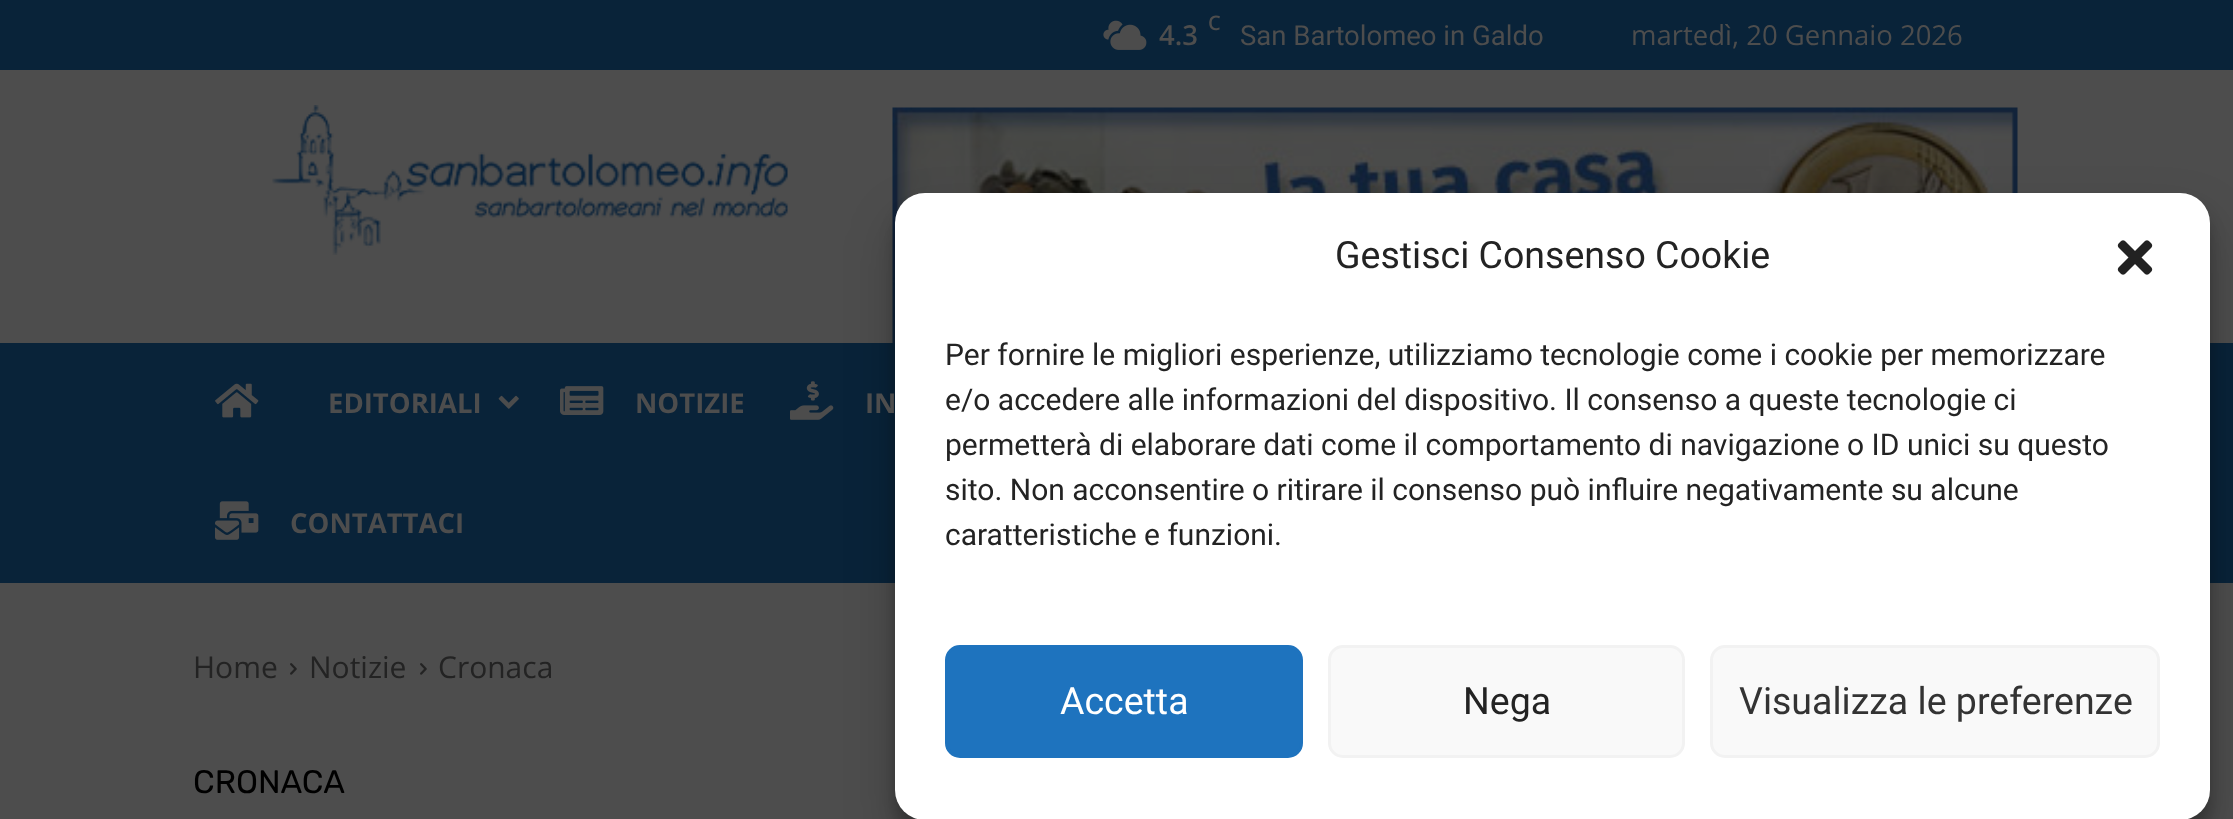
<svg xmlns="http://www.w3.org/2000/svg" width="2233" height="819">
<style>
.a{font:600 20px Open Sans;fill:#4d4d4d}
.b{font:600 27.5px Open Sans;fill:#4d4d4d}
.c{font:27.5px Roboto;fill:#4d4d4d}
.d{font:27.5px Open Sans;fill:#4d4d4d}
.e{font:bold 27.5px Open Sans;fill:#4d4d4d}
.f{font:30px Open Sans;fill:#232323}
.g{font:32.5px Rubik;fill:#000}
.h{font:37.5px Roboto;fill:#232323}
.i{font:30px Roboto;fill:#232323}
.j{font:37.5px Roboto;fill:#fff}
.k{font:37.5px Roboto;fill:#333}
</style>
<rect width="100%" height="100%" fill="#4d4d4d"/>
<path fill="#092339" d="M0 0h2233v70H0z"/>
<image href="1.png" x="1103" y="20" width="44" height="30"/>
<image href="2.png" x="272" y="105" width="516" height="150"/>
<image href="3.png" x="892" y="107" width="1126" height="236"/>
<path fill="#092339" d="M0 343h2233v240H0z"/>
<image href="4.png" x="215" y="383" width="44" height="35"/>
<image href="5.png" x="498" y="395" width="21" height="14"/>
<image href="6.png" x="560" y="386" width="44" height="29"/>
<image href="7.png" x="790" y="381" width="44" height="39"/>
<image href="8.png" x="215" y="501" width="44" height="39"/>
<image href="9.png" x="290" y="663" width="7" height="12"/>
<image href="9.png" x="420" y="663" width="7" height="12"/>
<rect fill="#0000003b" filter="blur(7.5px)" x="895" y="208" width="1315" height="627" rx="30"/>
<rect fill="#00000030" filter="blur(25px)" x="895" y="218" width="1315" height="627" rx="30"/>
<rect fill="#fff" x="895" y="193" width="1315" height="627" rx="30"/>
<image href="10.png" x="2117" y="240" width="36" height="35"/>
<rect fill="#1e73be" stroke="#1e73be" stroke-width="3" x="946.5" y="646.5" width="355" height="110" rx="13.5"/>
<rect fill="#f9f9f9" stroke="#f2f2f2" stroke-width="3" x="1329.5" y="646.5" width="354" height="110" rx="13.5"/>
<rect fill="#f9f9f9" stroke="#f2f2f2" stroke-width="3" x="1711.5" y="646.5" width="447" height="110" rx="13.5"/>
<text class="a" x="1208" y="30">C</text>
<text class="b" x="1159" y="45">4.3</text>
<text class="c" x="1240" y="45">San Bartolomeo in Galdo</text>
<text class="d" x="1631" y="45">martedì, 20 Gennaio 2026</text>
<text class="e" x="328" y="413">EDITORIALI</text>
<text class="e" x="635" y="413">NOTIZIE</text>
<text class="e" x="865" y="413">IN</text>
<text class="e" x="290" y="533">CONTATTACI</text>
<text class="f" x="193" y="678">Home</text>
<text class="f" x="309" y="678">Notizie</text>
<text class="f" x="438" y="678">Cronaca</text>
<text class="g" x="193" y="793">CRONACA</text>
<text class="h" x="1335" y="268">Gestisci Consenso Cookie</text>
<text class="i" x="945" y="365">Per fornire le migliori esperienze, utilizziamo tecnologie come i cookie per memorizzare</text>
<text class="i" x="945" y="410">e/o accedere alle informazioni del dispositivo. Il consenso a queste tecnologie ci</text>
<text class="i" x="945" y="455">permetterà di elaborare dati come il comportamento di navigazione o ID unici su questo</text>
<text class="i" x="945" y="500">sito. Non acconsentire o ritirare il consenso può influire negativamente su alcune</text>
<text class="i" x="945" y="545">caratteristiche e funzioni.</text>
<text class="j" x="1060" y="714">Accetta</text>
<text class="h" x="1463" y="714">Nega</text>
<text class="k" x="1739" y="714">Visualizza le preferenze</text>
</svg>
